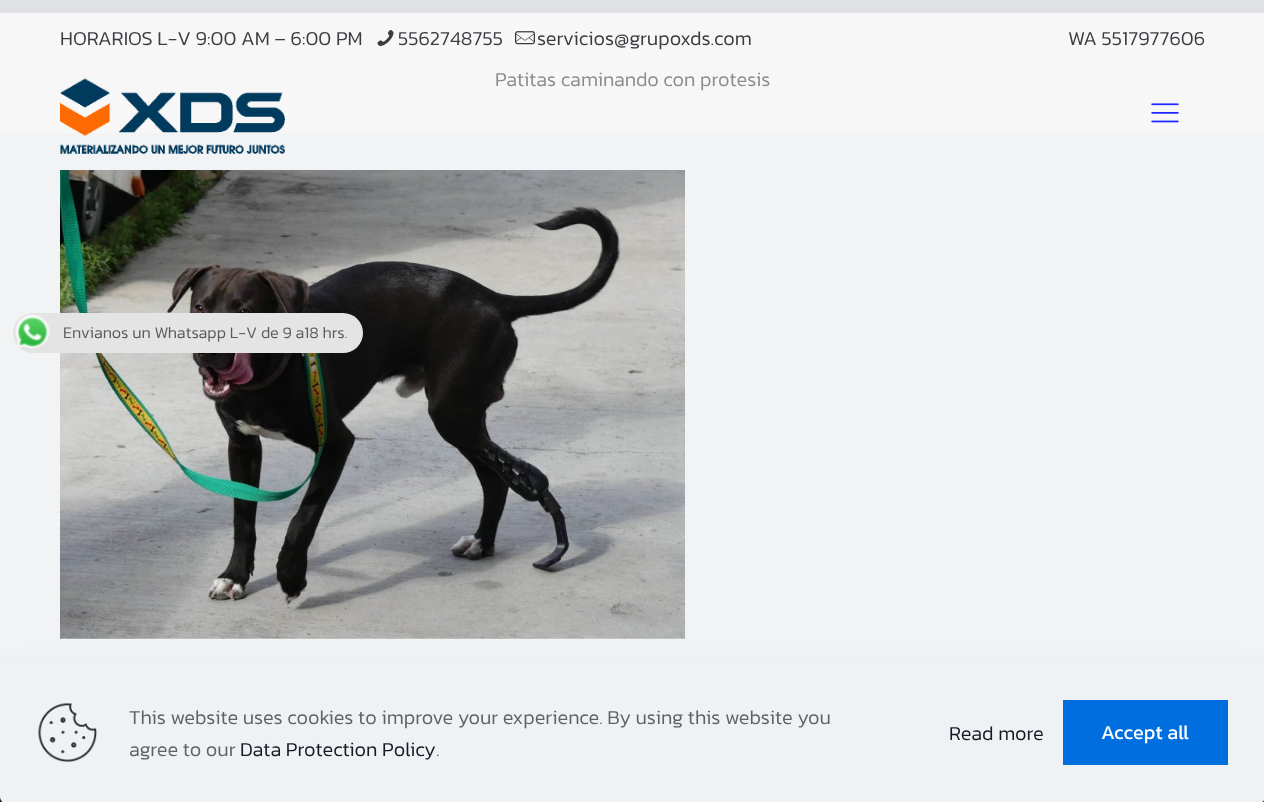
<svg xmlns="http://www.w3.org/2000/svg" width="1264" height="802">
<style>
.a{font:300 20px Kanit;fill:#3a3c41}
.b{font:300 20px Kanit;fill:#8c8c8c}
.c{font:300 16.25px Kanit;fill:#5b5b5b}
.d{font:300 20px Kanit;fill:#626262}
.e{font:300 20px Kanit;fill:#161922}
.f{font:20px Kanit;fill:#fff}
</style>
<rect width="100%" height="100%" fill="#f2f3f4"/>
<path fill="#e0e1e5" d="M0 0h1264v13H0z"/>
<path fill="#f7f7f7" d="M0 13h1264v120H0z"/>
<image href="1.png" x="377" y="30" width="17" height="16"/>
<image href="2.png" x="515" y="31" width="20" height="14"/>
<image href="3.png" x="60" y="78" width="225" height="76"/>
<image href="4.png" x="1151" y="103" width="28" height="20"/>
<image href="5.png" x="60" y="170" width="625" height="469"/>
<path fill="#24262b" d="M0 797h1264v5H0z"/>
<rect fill="#e4e4e4" x="13" y="313" width="350" height="40" rx="20"/>
<image href="6.png" x="15" y="314" width="35" height="36"/>
<rect fill="#01072721" filter="blur(19px)" y="681" width="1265" height="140" rx="6"/>
<rect fill="#eef2f5" y="663" width="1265" height="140" rx="6"/>
<image href="7.png" x="38" y="703" width="59" height="59"/>
<path fill="#006edf" d="M1063 700h165v65H1063z"/>
<text class="a" x="60" y="45">HORARIOS L-V 9:00 AM – 6:00 PM</text>
<text class="a" x="398" y="45">5562748755</text>
<text class="a" x="537" y="45">servicios@grupoxds.com</text>
<text class="a" x="1068" y="45">WA 5517977606</text>
<text class="b" x="495" y="86">Patitas caminando con protesis</text>
<text class="c" x="63" y="338">Envianos un Whatsapp L-V de 9 a18 hrs.</text>
<text class="d" x="129" y="724">This website uses cookies to improve your experience. By using this website you</text>
<text class="d" x="129" y="756">agree to our</text>
<text class="e" x="240" y="756">Data Protection Policy</text>
<text class="d" x="436" y="756">.</text>
<text class="e" x="949" y="740">Read more</text>
<text class="f" x="1101" y="739">Accept all</text>
</svg>
